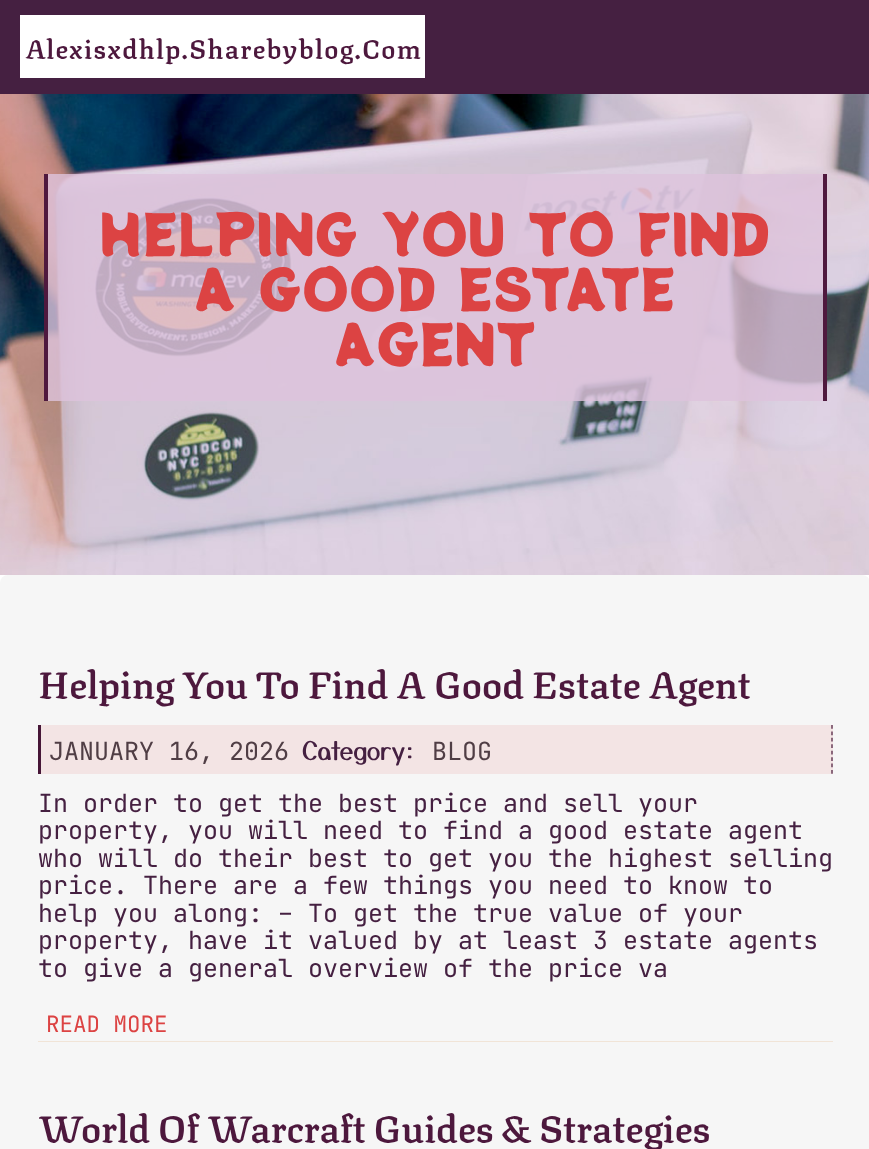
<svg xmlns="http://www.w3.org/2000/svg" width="869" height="1149">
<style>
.a{font:600 26.25px Texturina;letter-spacing:1.25px;fill:#4d183d}
.b{font:55px Potta One;fill:#dc4343}
.c{font:600 37.5px Texturina;fill:#4d183d}
.d{font:25px JetBrains Mono;fill:#503e45}
.e{font:25px Yusei Magic;fill:#452041}
.f{font:25px JetBrains Mono;fill:#452041}
.g{font:22.5px JetBrains Mono;fill:#dc4343}
</style>
<rect width="100%" height="100%" fill="#fff"/>
<path fill="#452041" d="M0 0h869v94H0z"/>
<path fill="#fff" d="M20 15h405v63H20z"/>
<image href="1.png" x="0" y="94" width="869" height="481"/>
<path fill="#ddc3dccc" d="M48 174h775v227H48z"/>
<path fill="#4f193e" d="M823 174h4v227H823z"/>
<path fill="#4f193e" d="M44 174h4v227H44z"/>
<rect fill="#f6f6f6" y="575" width="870" height="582" rx="8"/>
<path fill="#f1e4d7" d="M38 1041h795v1H38z"/>
<path fill="#f3e4e4" d="M41 725h792v49H41z"/>
<path fill="none" stroke="#461637" stroke-width="1.2" stroke-dasharray="3.75 2.68" d="M832 725v49"/>
<path fill="#461637" d="M38 725h3v49H38z"/>
<text class="a" x="25" y="59">Alexisxdhlp.Sharebyblog.Com</text>
<text class="b" x="100" y="256">HELPING YOU TO FIND</text>
<text class="b" x="194" y="311">A GOOD ESTATE</text>
<text class="b" x="334" y="366">AGENT</text>
<text class="c" x="38" y="699">Helping You To Find A Good Estate Agent</text>
<text class="d" x="49" y="760">JANUARY 16, 2026</text>
<text class="e" x="302" y="760">Category:</text>
<text class="d" x="432" y="760">BLOG</text>
<text class="f" x="38" y="812">In order to get the best price and sell your</text>
<text class="f" x="38" y="839">property, you will need to find a good estate agent</text>
<text class="f" x="38" y="867">who will do their best to get you the highest selling</text>
<text class="f" x="38" y="894">price. There are a few things you need to know to</text>
<text class="f" x="38" y="922">help you along: – To get the true value of your</text>
<text class="f" x="38" y="949">property, have it valued by at least 3 estate agents</text>
<text class="f" x="38" y="977">to give a general overview of the price va</text>
<text class="g" x="46" y="1032">READ MORE</text>
<text class="c" x="38" y="1143">World Of Warcraft Guides &amp; Strategies</text>
</svg>
